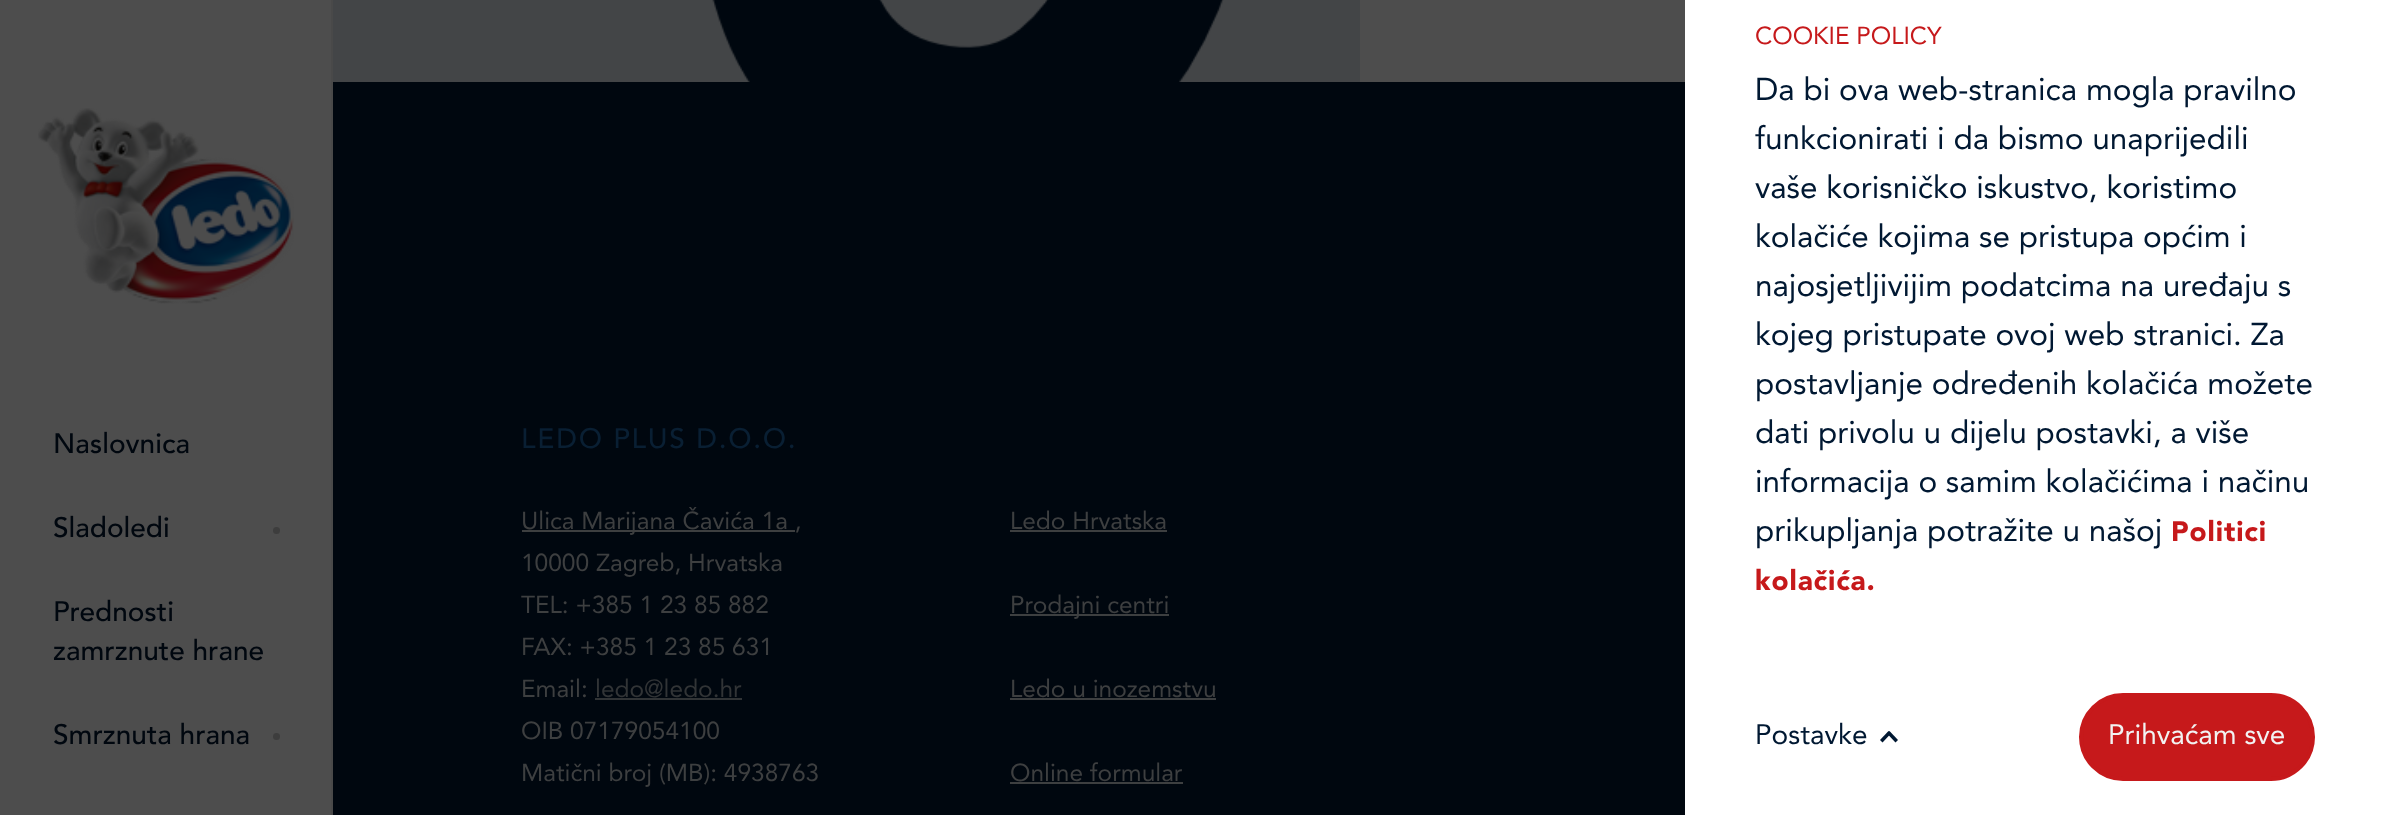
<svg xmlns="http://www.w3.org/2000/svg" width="2384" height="815">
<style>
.a{font:24.5px Avenir;fill:#c6191b}
.b{font:31.5px Avenir;fill:#001832}
.c{font:900 28px Avenir;letter-spacing:0.9px;fill:#c6191b}
.d{font:28px Avenir;fill:#001832}
.e{font:28px Avenir;fill:#f2f2f2}
.f{font:500 28px Avenir;fill:#00070f}
.g{font:500 28px Avenir;letter-spacing:1.75px;fill:#091f33}
.h{font:24.5px Avenir;fill:#3d3f40}
.i{font:24.5px Avenir;fill:#313436}
</style>
<rect width="100%" height="100%" fill="#4d4d4d"/>
<path fill="#434547" d="M333 0h1027v82H333z"/>
<image href="1.png" x="712" y="0" width="512" height="82"/>
<path fill="#fff" d="M1685 0h699v815H1685z"/>
<path fill="#001832" d="M1888.5 731l2.5 2.5l-8.5 9l-2.5-2.5z"/>
<path fill="#001832" d="M1887 733.5l2.5-2.5l8.5 9l-2.5 2.5z"/>
<rect fill="#c6191b" stroke="#c6191b" stroke-width="4" x="2081" y="695" width="232" height="84" rx="42"/>
<path fill="#494949" d="M331 0h2v815H331z"/>
<image href="2.png" x="38" y="108" width="256" height="196"/>
<circle fill="#3d3d3d" cx="276.5" cy="530.5" r="3.5"/>
<circle fill="#3d3d3d" cx="276.5" cy="736.5" r="3.5"/>
<path fill="#00070f" d="M333 82h1352v733H333z"/>
<path fill="#3d3f40" d="M522 530h273v2H522z"/>
<path fill="#313436" d="M595 698h147v2H595z"/>
<path fill="#3d3f40" d="M1010 530h157v2H1010z"/>
<path fill="#3d3f40" d="M1010 614h159v2H1010z"/>
<path fill="#3d3f40" d="M1010 698h206v2H1010z"/>
<path fill="#3d3f40" d="M1010 782h173v2H1010z"/>
<text class="a" x="1755" y="44">COOKIE POLICY</text>
<text class="b" x="1755" y="100">Da bi ova web-stranica mogla pravilno</text>
<text class="b" x="1755" y="149">funkcionirati i da bismo unaprijedili</text>
<text class="b" x="1755" y="198">vaše korisničko iskustvo, koristimo</text>
<text class="b" x="1755" y="247">kolačiće kojima se pristupa općim i</text>
<text class="b" x="1755" y="296">najosjetljivijim podatcima na uređaju s</text>
<text class="b" x="1755" y="345">kojeg pristupate ovoj web stranici. Za</text>
<text class="b" x="1755" y="394">postavljanje određenih kolačića možete</text>
<text class="b" x="1755" y="443">dati privolu u dijelu postavki, a više</text>
<text class="b" x="1755" y="492">informacija o samim kolačićima i načinu</text>
<text class="b" x="1755" y="541">prikupljanja potražite u našoj</text>
<text class="c" x="2171" y="541">Politici</text>
<text class="c" x="1755" y="590">kolačića.</text>
<text class="d" x="1755" y="744">Postavke</text>
<text class="e" x="2108" y="744">Prihvaćam sve</text>
<text class="f" x="53" y="453">Naslovnica</text>
<text class="f" x="53" y="537">Sladoledi</text>
<text class="f" x="53" y="621">Prednosti</text>
<text class="f" x="53" y="660">zamrznute hrane</text>
<text class="f" x="53" y="744">Smrznuta hrana</text>
<text class="g" x="521" y="448">LEDO PLUS D.O.O.</text>
<text class="h" x="521" y="529">Ulica Marijana Čavića 1a ,</text>
<text class="h" x="521" y="571">10000 Zagreb, Hrvatska</text>
<text class="h" x="521" y="613">TEL: +385 1 23 85 882</text>
<text class="h" x="521" y="655">FAX: +385 1 23 85 631</text>
<text class="h" x="521" y="697">Email:</text>
<text class="i" x="595" y="697">ledo@ledo.hr</text>
<text class="h" x="521" y="739">OIB 07179054100</text>
<text class="h" x="521" y="781">Matični broj (MB): 4938763</text>
<text class="h" x="1010" y="529">Ledo Hrvatska</text>
<text class="h" x="1010" y="613">Prodajni centri</text>
<text class="h" x="1010" y="697">Ledo u inozemstvu</text>
<text class="h" x="1010" y="781">Online formular</text>
</svg>
